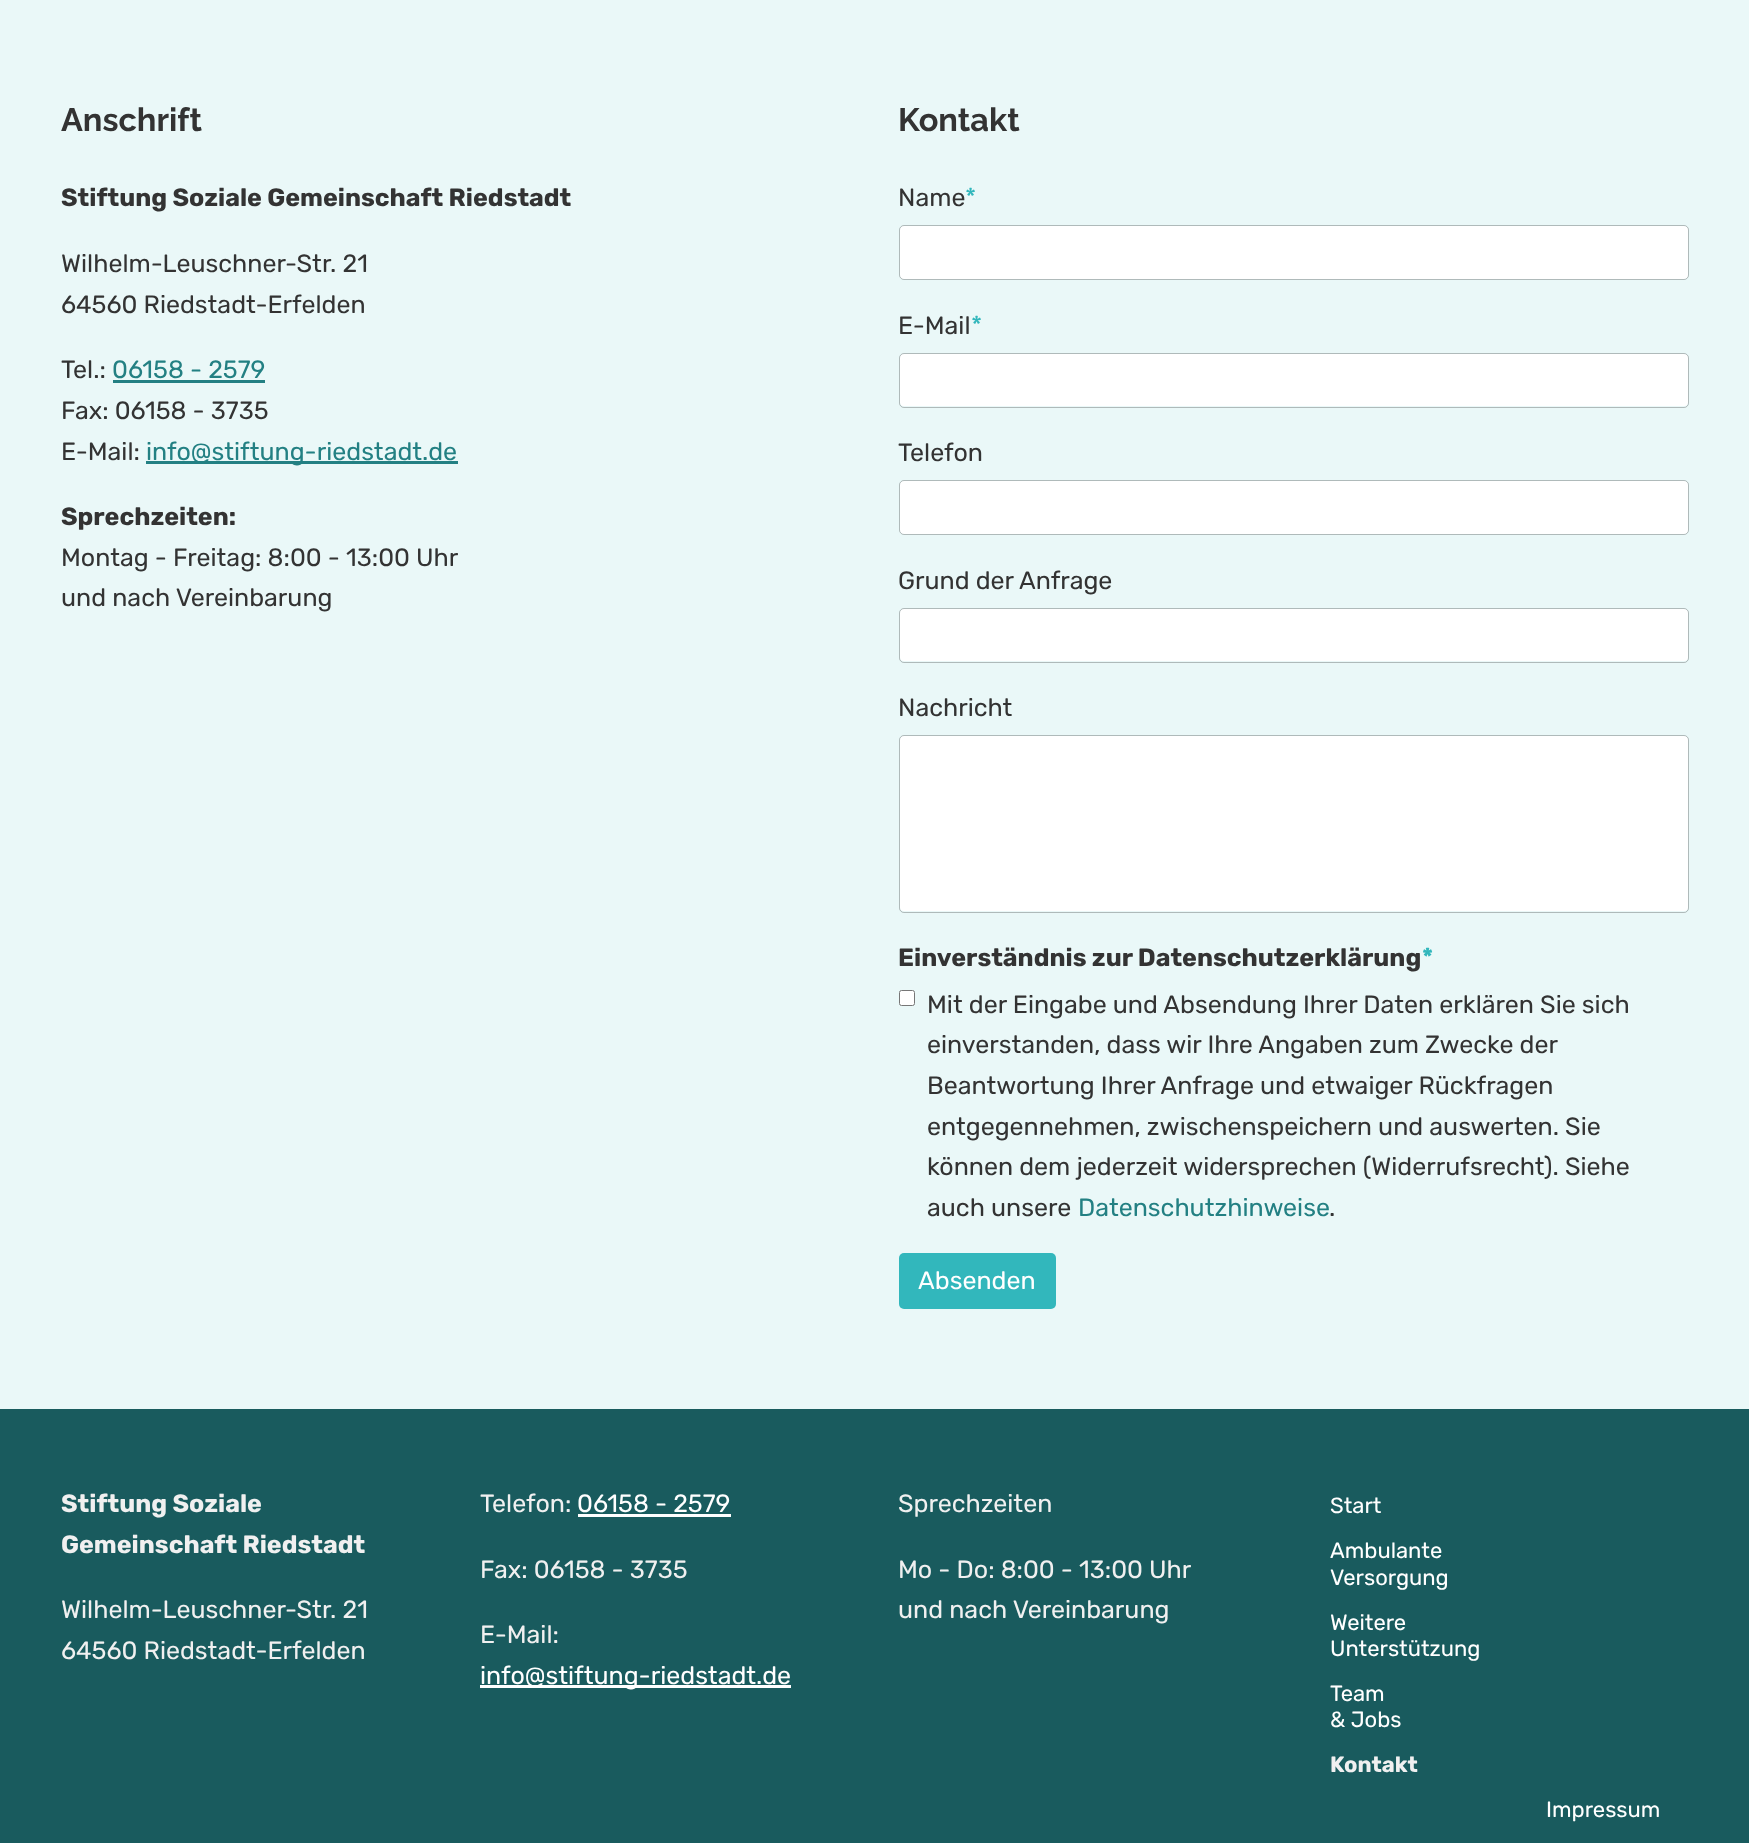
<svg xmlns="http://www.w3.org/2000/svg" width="1749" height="1843">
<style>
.a{font:bold 32.5px Raleway;fill:#333}
.b{font:bold 25px Rubik;fill:#333}
.c{font:25px Rubik;fill:#333}
.d{font:25px Rubik;fill:#238083}
.e{font:25px Rubik;fill:#32b7bc}
.f{font:bold 25px Rubik;fill:#32b7bc}
.g{font:25px Rubik;fill:#fff}
.h{font:bold 25px Rubik;fill:#f0f0f0}
.i{font:25px Rubik;fill:#f0f0f0}
.j{font:22px Rubik;fill:#fff}
.k{font:bold 22px Rubik;fill:#f0f0f0}
</style>
<rect width="100%" height="100%" fill="#195b5e"/>
<path fill="#eaf8f8" d="M0 0h1749v1409H0z"/>
<path fill="#238083" d="M113 380h152v3H113z"/>
<path fill="#238083" d="M146 461h312v3H146z"/>
<rect fill="#fff" x="900" y="226" width="788" height="53" rx="4"/>
<rect fill="none" stroke="#00000040" x="899.5" y="225.5" width="789" height="54" rx="4.5"/>
<rect fill="#fff" x="900" y="354" width="788" height="52" rx="4"/>
<rect fill="none" stroke="#00000040" x="899.5" y="353.5" width="789" height="54" rx="4.5"/>
<rect fill="#fff" x="900" y="481" width="788" height="53" rx="4"/>
<rect fill="none" stroke="#00000040" x="899.5" y="480.5" width="789" height="54" rx="4.5"/>
<rect fill="#fff" x="900" y="609" width="788" height="52" rx="4"/>
<rect fill="none" stroke="#00000040" x="899.5" y="608.5" width="789" height="54" rx="4.5"/>
<rect fill="#fff" x="900" y="736" width="788" height="175" rx="4"/>
<rect fill="none" stroke="#00000040" x="899.5" y="735.5" width="789" height="177" rx="4.5"/>
<rect fill="#fff" stroke="#767676" x="899.5" y="990.5" width="15" height="15" rx="2"/>
<rect fill="#32b7bc" x="899" y="1253" width="157" height="56" rx="5"/>
<path fill="#fff" d="M578 1514h153v3H578z"/>
<path fill="#fff" d="M480 1685h311v3H480z"/>
<text class="a" x="61" y="131">Anschrift</text>
<text class="b" x="61" y="206">Stiftung Soziale Gemeinschaft Riedstadt</text>
<text class="c" x="61" y="272">Wilhelm-Leuschner-Str. 21</text>
<text class="c" x="61" y="313">64560 Riedstadt-Erfelden</text>
<text class="c" x="61" y="378">Tel.:</text>
<text class="d" x="112" y="378">06158 - 2579</text>
<text class="c" x="61" y="419">Fax: 06158 - 3735</text>
<text class="c" x="61" y="460">E-Mail:</text>
<text class="d" x="146" y="460">info@stiftung-riedstadt.de</text>
<text class="b" x="61" y="525">Sprechzeiten:</text>
<text class="c" x="61" y="566">Montag - Freitag: 8:00 - 13:00 Uhr</text>
<text class="c" x="61" y="606">und nach Vereinbarung</text>
<text class="a" x="898" y="131">Kontakt</text>
<text class="c" x="898" y="206">Name</text>
<text class="e" x="965" y="206">*</text>
<text class="c" x="898" y="334">E-Mail</text>
<text class="e" x="971" y="334">*</text>
<text class="c" x="898" y="461">Telefon</text>
<text class="c" x="898" y="589">Grund der Anfrage</text>
<text class="c" x="898" y="716">Nachricht</text>
<text class="b" x="898" y="966">Einverständnis zur Datenschutzerklärung</text>
<text class="f" x="1422" y="966">*</text>
<text class="c" x="927" y="1013">Mit der Eingabe und Absendung Ihrer Daten erklären Sie sich</text>
<text class="c" x="927" y="1053">einverstanden, dass wir Ihre Angaben zum Zwecke der</text>
<text class="c" x="927" y="1094">Beantwortung Ihrer Anfrage und etwaiger Rückfragen</text>
<text class="c" x="927" y="1135">entgegennehmen, zwischenspeichern und auswerten. Sie</text>
<text class="c" x="927" y="1175">können dem jederzeit widersprechen (Widerrufsrecht). Siehe</text>
<text class="c" x="927" y="1216">auch unsere</text>
<text class="d" x="1078" y="1216">Datenschutzhinweise</text>
<text class="c" x="1329" y="1216">.</text>
<text class="g" x="918" y="1289">Absenden</text>
<text class="h" x="61" y="1512">Stiftung Soziale</text>
<text class="h" x="61" y="1553">Gemeinschaft Riedstadt</text>
<text class="i" x="61" y="1618">Wilhelm-Leuschner-Str. 21</text>
<text class="i" x="61" y="1659">64560 Riedstadt-Erfelden</text>
<text class="i" x="480" y="1512">Telefon:</text>
<text class="g" x="577" y="1512">06158 - 2579</text>
<text class="i" x="480" y="1578">Fax: 06158 - 3735</text>
<text class="i" x="480" y="1643">E-Mail:</text>
<text class="g" x="480" y="1684">info@stiftung-riedstadt.de</text>
<text class="i" x="898" y="1512">Sprechzeiten</text>
<text class="i" x="898" y="1578">Mo - Do: 8:00 - 13:00 Uhr</text>
<text class="i" x="898" y="1618">und nach Vereinbarung</text>
<text class="j" x="1330" y="1513">Start</text>
<text class="j" x="1330" y="1558">Ambulante</text>
<text class="j" x="1330" y="1585">Versorgung</text>
<text class="j" x="1330" y="1630">Weitere</text>
<text class="j" x="1330" y="1656">Unterstützung</text>
<text class="j" x="1330" y="1701">Team</text>
<text class="j" x="1330" y="1727">&amp; Jobs</text>
<text class="k" x="1330" y="1772">Kontakt</text>
<text class="j" x="1546" y="1817">Impressum</text>
</svg>
